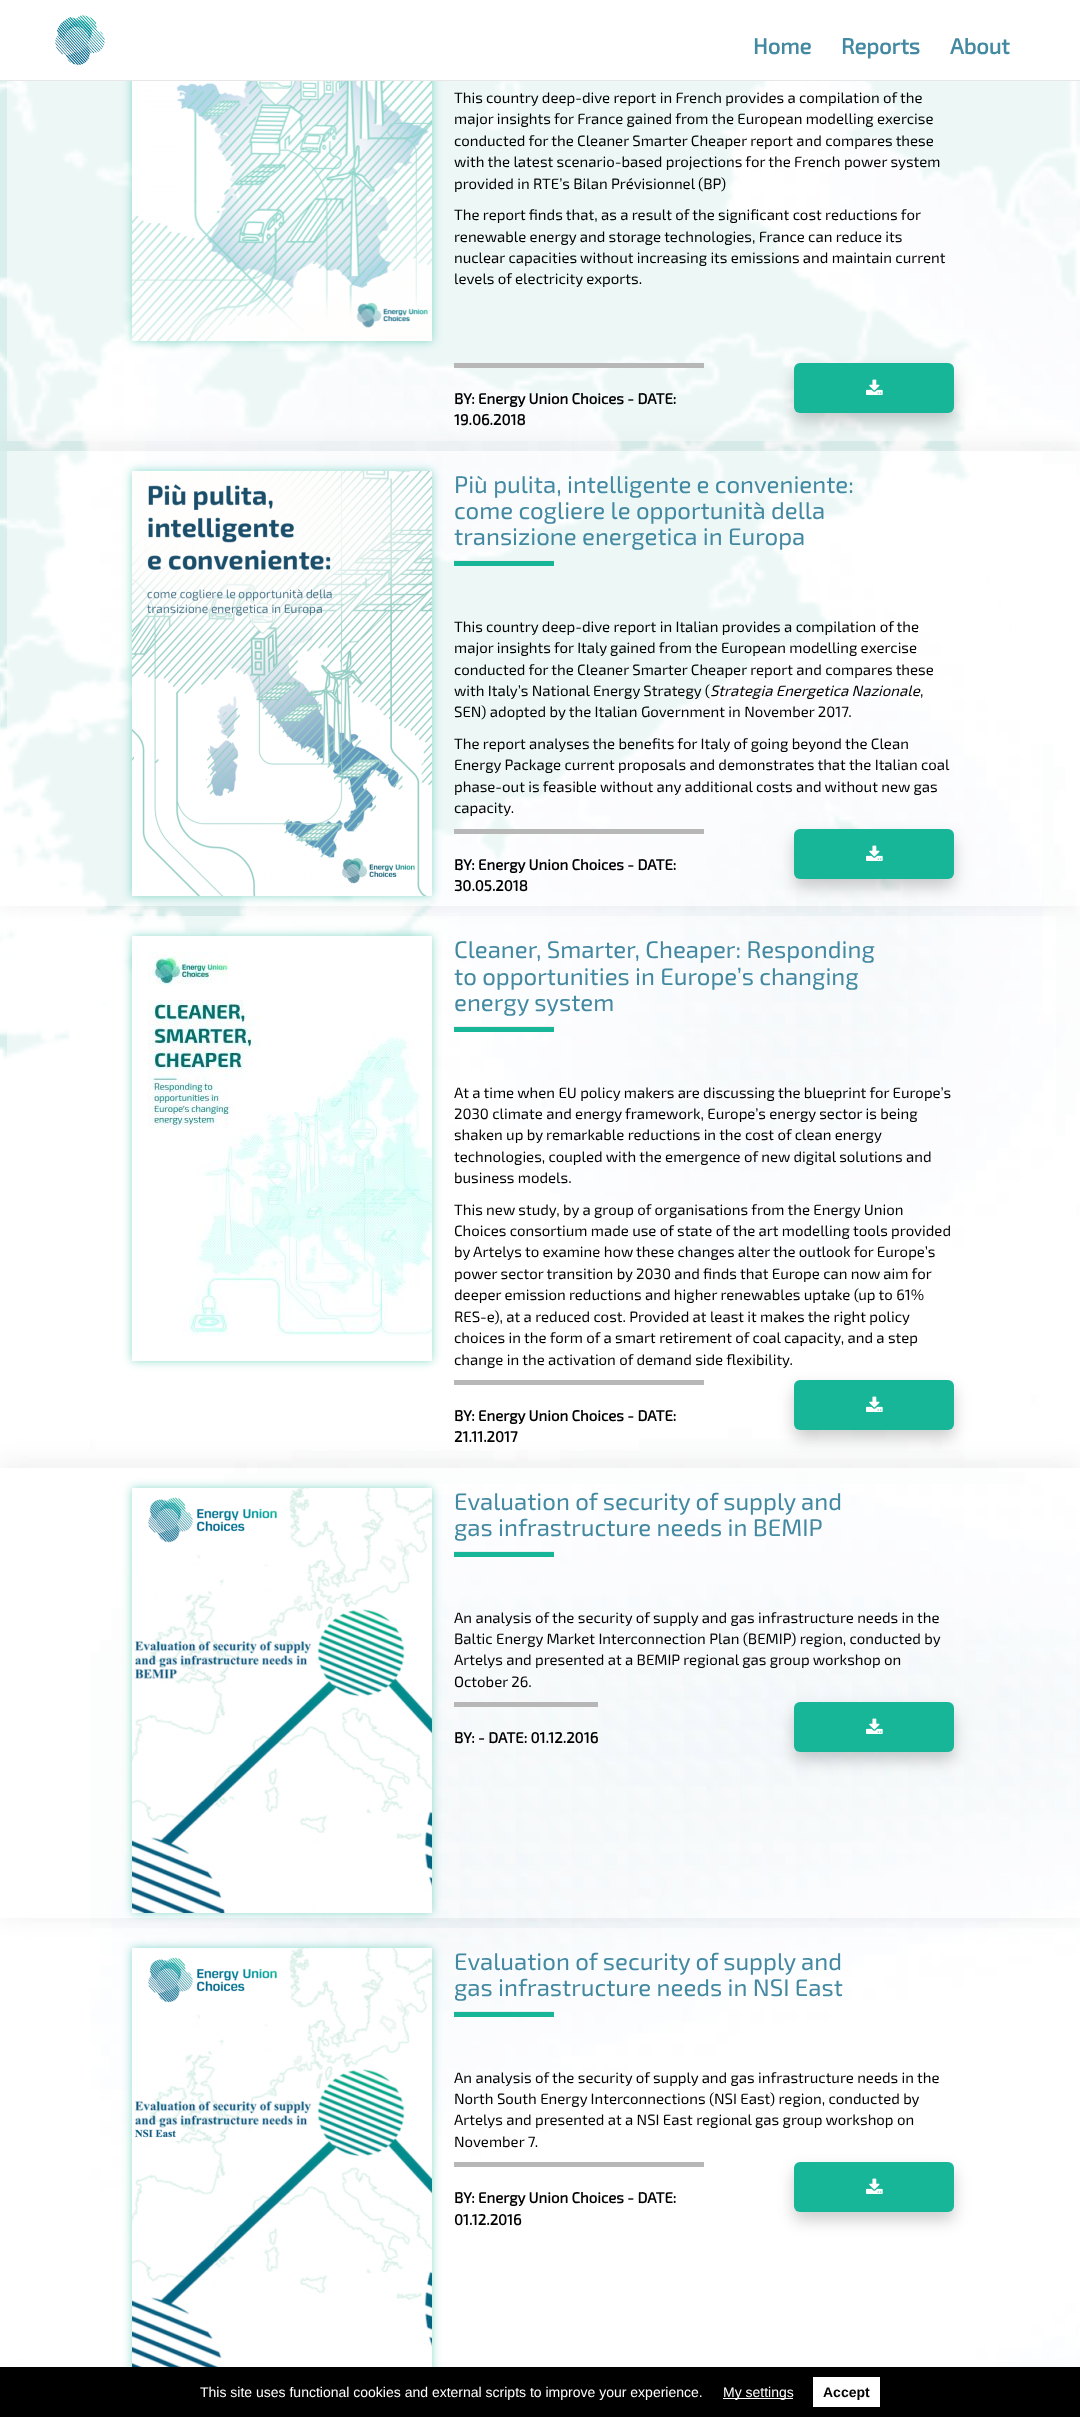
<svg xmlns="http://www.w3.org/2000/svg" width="1080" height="2417">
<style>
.a{font:bold 22px 'Exo 2';fill:#4389a1}
.b{font:15px 'Exo 2';fill:#000}
.c{font:bold 15px 'Exo 2';fill:#000}
.d{font:24px 'Exo 2';fill:#4389a1}
.e{font:italic 15px 'Exo 2';fill:#000}
.f{font:14px Liberation Sans;fill:#fff}
.g{font:bold 14px Liberation Sans;fill:#000}
</style>
<defs>
<clipPath id="clip1"><path d="M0 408h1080v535h-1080zm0 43h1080v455h-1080z" clip-rule="evenodd"/></clipPath>
<clipPath id="clip2"><path d="M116 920h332v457h-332zm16 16h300v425h-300z" clip-rule="evenodd"/></clipPath>
<clipPath id="clip3"><path d="M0 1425h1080v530h-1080zm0 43h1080v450h-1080z" clip-rule="evenodd"/></clipPath>
</defs>
<rect width="100%" height="100%" fill="#fff"/>
<image href="1.png" x="90" y="81" width="990" height="2286"/>
<image href="3.png" x="0" y="81" width="1080" height="1029"/>
<path fill="#ffffff1a" d="M0 81h1078v360H0z"/>
<path fill="#ffffff80" d="M7 81h1073v360H7z"/>
<path fill="#17b69880" filter="blur(5px)" d="M132 -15h300v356H132z"/>
<path fill="#fff" d="M122 0h320v80H122z"/>
<path fill="#e7e7e7" d="M0 80h1080v1H0z"/>
<image href="2.png" x="55" y="15" width="50" height="50"/>
<image href="4.png" x="132" y="81" width="300" height="260"/>
<path fill="#b7b7b7" d="M454 363h250v5H454z"/>
<rect fill="#00000033" filter="blur(8px)" x="794" y="371" width="160" height="50" rx="6"/>
<g clip-path="url(#clip1)">
<path fill="#dedede80" filter="blur(12.5px)" d="M-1 447h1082v457H-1z"/>
</g>
<rect fill="#18b699" x="794" y="363" width="160" height="50" rx="6"/>
<image href="5.png" x="866" y="379" width="17" height="16"/>
<path fill="#ffffff1a" d="M0 451h967v455H0z"/>
<path fill="#ffffff80" d="M7 451h1035v455H7z"/>
<path fill="#17b69880" filter="blur(5px)" d="M132 471h300v425H132z"/>
<image href="6.png" x="132" y="471" width="300" height="425"/>
<path fill="#eee" d="M454 560h100v1H454z"/>
<path fill="#18b699" d="M454 561h100v5H454z"/>
<path fill="#b7b7b7" d="M454 829h250v5H454z"/>
<rect fill="#00000033" filter="blur(8px)" x="794" y="837" width="160" height="50" rx="6"/>
<rect fill="#18b699" x="794" y="829" width="160" height="50" rx="6"/>
<image href="5.png" x="866" y="845" width="17" height="16"/>
<path fill="#ffffff1a" d="M0 916h420v138H0z"/>
<path fill="#ffffff80" d="M7 916h1049v355H7z"/>
<g clip-path="url(#clip2)">
<path fill="#17b69880" filter="blur(5px)" d="M132 936h300v425H132z"/>
</g>
<image href="7.png" x="132" y="936" width="300" height="400"/>
<path fill="#eee" d="M454 1026h100v1H454z"/>
<path fill="#18b699" d="M454 1027h100v5H454z"/>
<path fill="#b7b7b7" d="M454 1380h250v5H454z"/>
<rect fill="#00000033" filter="blur(8px)" x="794" y="1388" width="160" height="50" rx="6"/>
<g clip-path="url(#clip3)">
<path fill="#dedede80" filter="blur(12.5px)" d="M-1 1464h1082v452H-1z"/>
</g>
<rect fill="#18b699" x="794" y="1380" width="160" height="50" rx="6"/>
<image href="5.png" x="866" y="1396" width="17" height="16"/>
<path fill="#ffffff1a" d="M460 1660h539v193H460z"/>
<path fill="#ffffff80" d="M123 1484h957v434H123z"/>
<path fill="#ffffff80" d="M90 1928h990v439H90z"/>
<path fill="#17b69880" filter="blur(5px)" d="M132 1488h300v425H132z"/>
<image href="8.png" x="132" y="1488" width="300" height="425"/>
<path fill="#eee" d="M454 1551h100v1H454z"/>
<path fill="#18b699" d="M454 1552h100v5H454z"/>
<path fill="#b7b7b7" d="M454 1702h144v5H454z"/>
<rect fill="#00000033" filter="blur(8px)" x="794" y="1710" width="160" height="50" rx="6"/>
<rect fill="#18b699" x="794" y="1702" width="160" height="50" rx="6"/>
<image href="5.png" x="866" y="1718" width="17" height="16"/>
<path fill="#17b69880" filter="blur(5px)" d="M132 1948h300v425H132z"/>
<path fill="#dedede80" filter="blur(12.5px)" d="M-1 2384h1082v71H-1z"/>
<image href="9.png" x="132" y="1948" width="300" height="419"/>
<path fill="#eee" d="M454 2011h100v1H454z"/>
<path fill="#18b699" d="M454 2012h100v5H454z"/>
<path fill="#b7b7b7" d="M454 2162h250v5H454z"/>
<rect fill="#00000033" filter="blur(8px)" x="794" y="2170" width="160" height="50" rx="6"/>
<rect fill="#18b699" x="794" y="2162" width="160" height="50" rx="6"/>
<image href="5.png" x="866" y="2178" width="17" height="16"/>
<path fill="#000" d="M0 2367h1080v50H0z"/>
<path fill="#fff" d="M723 2398h70v1H723z"/>
<path fill="#fff" d="M813 2377h67v30H813z"/>
<text class="a" x="753" y="54">Home</text>
<text class="a" x="841" y="54">Reports</text>
<text class="a" x="950" y="54">About</text>
<text class="b" x="454" y="103">This country deep-dive report in French provides a compilation of the</text>
<text class="b" x="454" y="124">major insights for France gained from the European modelling exercise</text>
<text class="b" x="454" y="146">conducted for the Cleaner Smarter Cheaper report and compares these</text>
<text class="b" x="454" y="167">with the latest scenario-based projections for the French power system</text>
<text class="b" x="454" y="189">provided in RTE’s Bilan Prévisionnel (BP)</text>
<text class="b" x="454" y="220">The report finds that, as a result of the significant cost reductions for</text>
<text class="b" x="454" y="242">renewable energy and storage technologies, France can reduce its</text>
<text class="b" x="454" y="263">nuclear capacities without increasing its emissions and maintain current</text>
<text class="b" x="454" y="284">levels of electricity exports.</text>
<text class="c" x="454" y="404">BY: Energy Union Choices - DATE:</text>
<text class="c" x="454" y="425">19.06.2018</text>
<text class="d" x="454" y="493">Più pulita, intelligente e conveniente:</text>
<text class="d" x="454" y="519">come cogliere le opportunità della</text>
<text class="d" x="454" y="545">transizione energetica in Europa</text>
<text class="b" x="454" y="632">This country deep-dive report in Italian provides a compilation of the</text>
<text class="b" x="454" y="653">major insights for Italy gained from the European modelling exercise</text>
<text class="b" x="454" y="675">conducted for the Cleaner Smarter Cheaper report and compares these</text>
<text class="b" x="454" y="696">with Italy’s National Energy Strategy (</text>
<text class="e" x="710" y="696">Strategia Energetica Nazionale</text>
<text class="b" x="920" y="696">,</text>
<text class="b" x="454" y="717">SEN) adopted by the Italian Government in November 2017.</text>
<text class="b" x="454" y="749">The report analyses the benefits for Italy of going beyond the Clean</text>
<text class="b" x="454" y="770">Energy Package current proposals and demonstrates that the Italian coal</text>
<text class="b" x="454" y="792">phase-out is feasible without any additional costs and without new gas</text>
<text class="b" x="454" y="813">capacity.</text>
<text class="c" x="454" y="870">BY: Energy Union Choices - DATE:</text>
<text class="c" x="454" y="891">30.05.2018</text>
<text class="d" x="454" y="958">Cleaner, Smarter, Cheaper: Responding</text>
<text class="d" x="454" y="985">to opportunities in Europe’s changing</text>
<text class="d" x="454" y="1011">energy system</text>
<text class="b" x="454" y="1098">At a time when EU policy makers are discussing the blueprint for Europe’s</text>
<text class="b" x="454" y="1119">2030 climate and energy framework, Europe’s energy sector is being</text>
<text class="b" x="454" y="1140">shaken up by remarkable reductions in the cost of clean energy</text>
<text class="b" x="454" y="1162">technologies, coupled with the emergence of new digital solutions and</text>
<text class="b" x="454" y="1183">business models.</text>
<text class="b" x="454" y="1215">This new study, by a group of organisations from the Energy Union</text>
<text class="b" x="454" y="1236">Choices consortium made use of state of the art modelling tools provided</text>
<text class="b" x="454" y="1257">by Artelys to examine how these changes alter the outlook for Europe’s</text>
<text class="b" x="454" y="1279">power sector transition by 2030 and finds that Europe can now aim for</text>
<text class="b" x="454" y="1300">deeper emission reductions and higher renewables uptake (up to 61%</text>
<text class="b" x="454" y="1322">RES-e), at a reduced cost. Provided at least it makes the right policy</text>
<text class="b" x="454" y="1343">choices in the form of a smart retirement of coal capacity, and a step</text>
<text class="b" x="454" y="1365">change in the activation of demand side flexibility.</text>
<text class="c" x="454" y="1421">BY: Energy Union Choices - DATE:</text>
<text class="c" x="454" y="1442">21.11.2017</text>
<text class="d" x="454" y="1510">Evaluation of security of supply and</text>
<text class="d" x="454" y="1536">gas infrastructure needs in BEMIP</text>
<text class="b" x="454" y="1623">An analysis of the security of supply and gas infrastructure needs in the</text>
<text class="b" x="454" y="1644">Baltic Energy Market Interconnection Plan (BEMIP) region, conducted by</text>
<text class="b" x="454" y="1665">Artelys and presented at a BEMIP regional gas group workshop on</text>
<text class="b" x="454" y="1687">October 26.</text>
<text class="c" x="454" y="1743">BY: - DATE: 01.12.2016</text>
<text class="d" x="454" y="1970">Evaluation of security of supply and</text>
<text class="d" x="454" y="1996">gas infrastructure needs in NSI East</text>
<text class="b" x="454" y="2083">An analysis of the security of supply and gas infrastructure needs in the</text>
<text class="b" x="454" y="2104">North South Energy Interconnections (NSI East) region, conducted by</text>
<text class="b" x="454" y="2125">Artelys and presented at a NSI East regional gas group workshop on</text>
<text class="b" x="454" y="2147">November 7.</text>
<text class="c" x="454" y="2203">BY: Energy Union Choices - DATE:</text>
<text class="c" x="454" y="2225">01.12.2016</text>
<text class="f" x="200" y="2397">This site uses functional cookies and external scripts to improve your experience.</text>
<text class="f" x="723" y="2397">My settings</text>
<text class="g" x="823" y="2397">Accept</text>
</svg>
